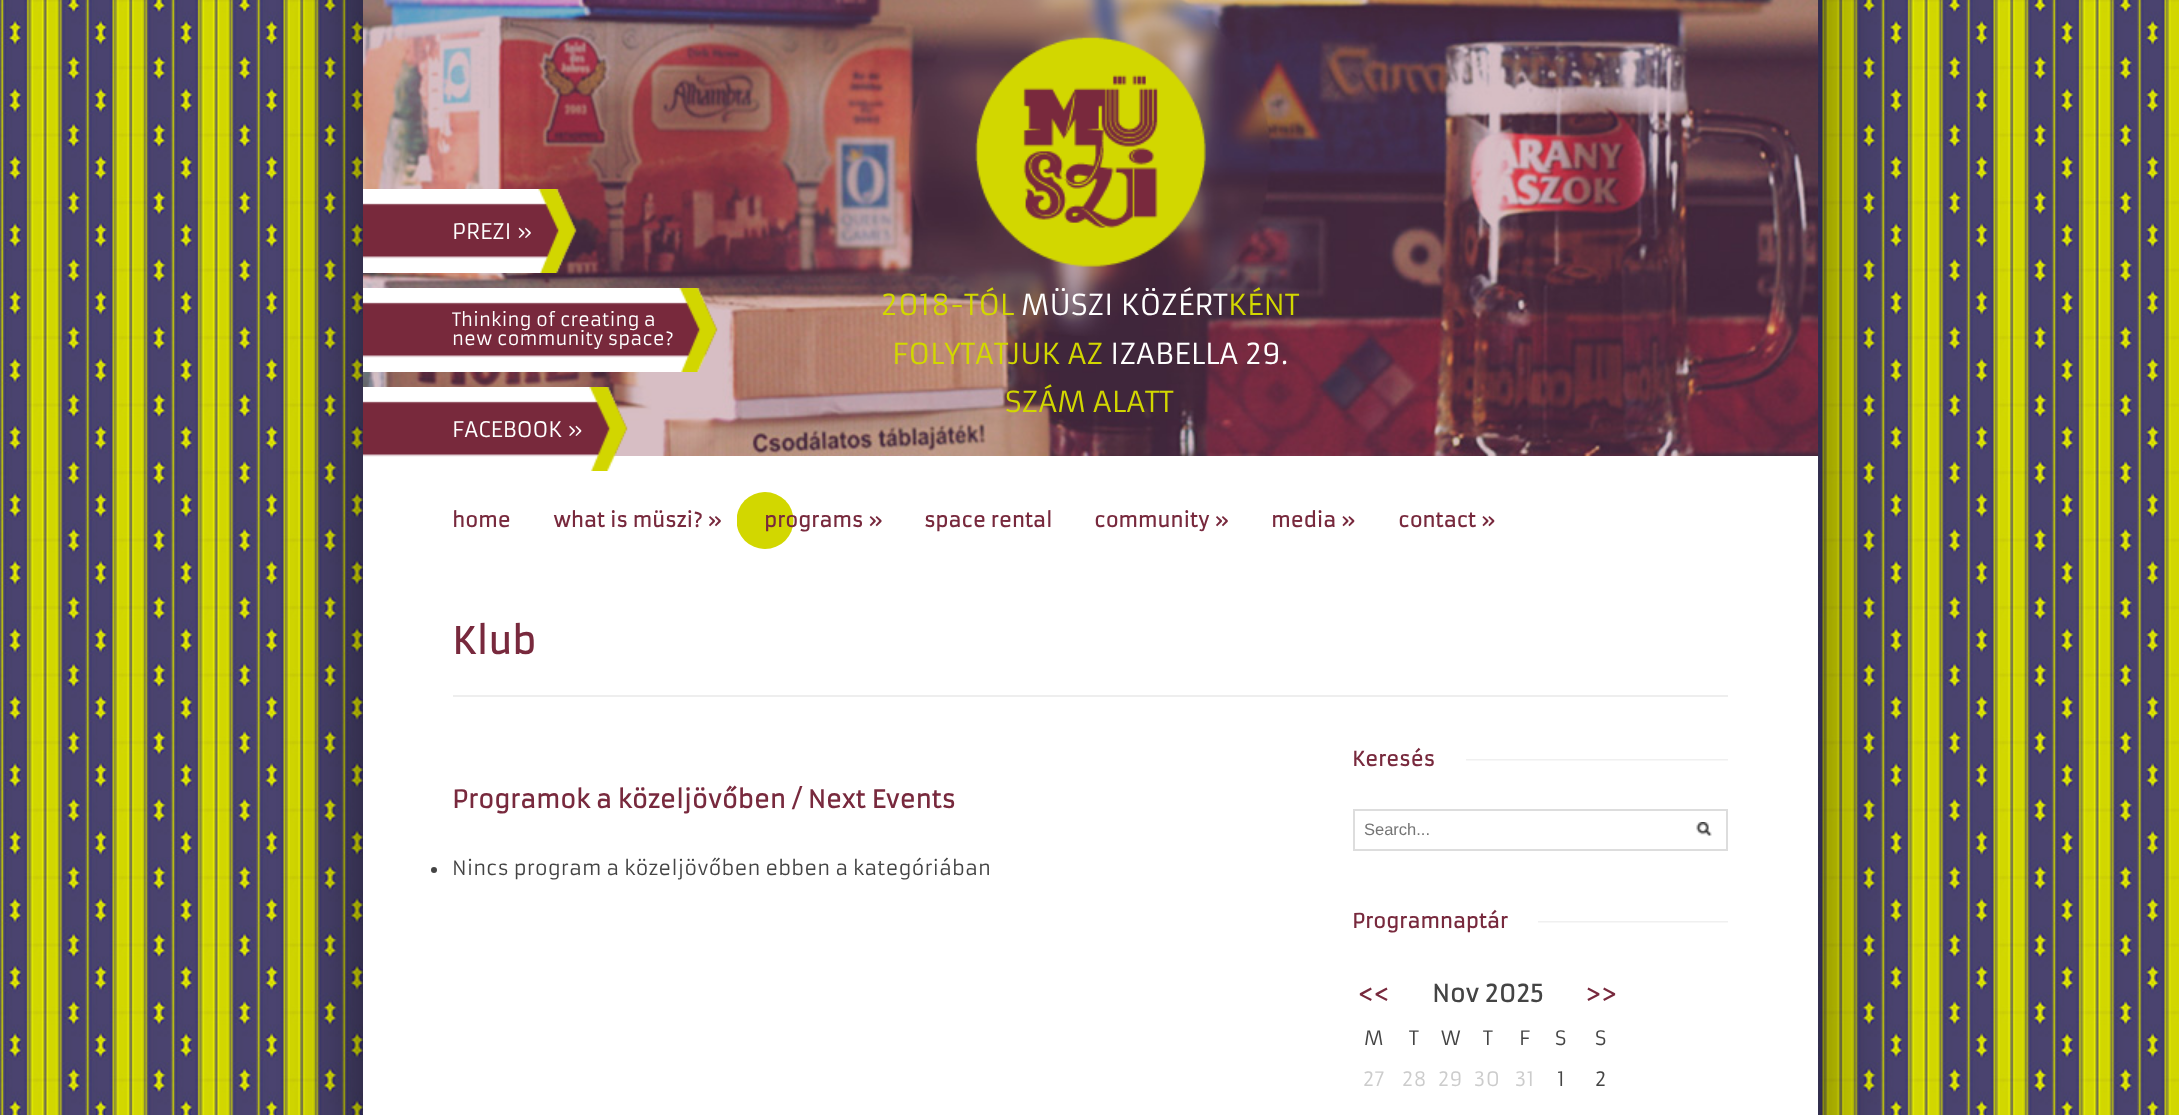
<svg xmlns="http://www.w3.org/2000/svg" width="2179" height="1115">
<style>
.a{font:21px Armata;fill:#fff}
.b{font:18px Armata;fill:#fff}
.c{font:28.5px Armata;fill:#d2d700}
.d{font:28.5px Armata;fill:#fff}
.e{font:bold 19.5px Armata;fill:#78293d}
.f{font:bold 36px Armata;fill:#78293d}
.g{font:bold 24px Armata;fill:#78293d}
.h{font:19.5px Armata;fill:#444}
.i{font:16.5px Liberation Sans;fill:#757575}
.j{font:bold 23.5px Armata;fill:#78293d}
.k{font:bold 23.5px Armata;fill:#444}
.l{font:19.5px Armata;fill:#ccc}
</style>
<defs>
<clipPath id="clip1"><path d="M737 492h57v57H737z"/></clipPath>
</defs>
<rect width="100%" height="100%" fill="#fff"/>
<image href="1.png" x="0" y="0" width="2179" height="1115"/>
<path fill="#00000099" filter="blur(37.5px)" d="M363 -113h1455v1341H363z"/>
<path fill="#fff" d="M363 456h1455v659H363z"/>
<image href="2.png" x="363" y="0" width="1455" height="456"/>
<image href="3.png" x="975" y="37" width="231" height="230"/>
<image href="4.png" x="363" y="189" width="214" height="84"/>
<image href="5.png" x="363" y="288" width="355" height="84"/>
<image href="6.png" x="363" y="387" width="265" height="84"/>
<g clip-path="url(#clip1)">
<circle fill="#d2d700" cx="765" cy="520.5" r="28.5"/>
</g>
<path fill="#eee" d="M453 695h1275v2H453z"/>
<circle fill="#444" cx="434" cy="870" r="3"/>
<image href="7.png" x="1466" y="759" width="262" height="2"/>
<image href="8.png" x="1696" y="822" width="16" height="14"/>
<path fill="none" stroke="#ddd" stroke-width="2" d="M1354 810h373v40H1354z"/>
<image href="9.png" x="1538" y="921" width="190" height="2"/>
<text class="a" x="452" y="239">PREZI »</text>
<text class="b" x="452" y="326">Thinking of creating a</text>
<text class="b" x="452" y="345">new community space?</text>
<text class="a" x="452" y="437">FACEBOOK »</text>
<text class="c" x="881" y="315">2018-TÓL</text>
<text class="d" x="1021" y="315">MÜSZI KÖZÉRT</text>
<text class="c" x="1228" y="315">KÉNT</text>
<text class="c" x="892" y="364">FOLYTATJUK AZ</text>
<text class="d" x="1110" y="364">IZABELLA 29.</text>
<text class="c" x="1005" y="412">SZÁM ALATT</text>
<text class="e" x="452" y="527">home</text>
<text class="e" x="553" y="527">what is müszi? »</text>
<text class="e" x="764" y="527">programs »</text>
<text class="e" x="924" y="527">space rental</text>
<text class="e" x="1094" y="527">community »</text>
<text class="e" x="1271" y="527">media »</text>
<text class="e" x="1398" y="527">contact »</text>
<text class="f" x="452" y="654">Klub</text>
<text class="g" x="452" y="808">Programok a közeljövőben / Next Events</text>
<text class="h" x="452" y="875">Nincs program a közeljövőben ebben a kategóriában</text>
<text class="e" x="1352" y="766">Keresés</text>
<text class="i" x="1364" y="835">Search...</text>
<text class="e" x="1352" y="928">Programnaptár</text>
<text class="j" x="1358" y="1002">&lt;&lt;</text>
<text class="k" x="1432" y="1002">Nov 2025</text>
<text class="j" x="1585" y="1002">&gt;&gt;</text>
<text class="h" x="1364" y="1045">M</text>
<text class="h" x="1409" y="1045">T</text>
<text class="h" x="1441" y="1045">W</text>
<text class="h" x="1483" y="1045">T</text>
<text class="h" x="1519" y="1045">F</text>
<text class="h" x="1555" y="1045">S</text>
<text class="h" x="1595" y="1045">S</text>
<text class="l" x="1363" y="1086">27</text>
<text class="l" x="1402" y="1086">28</text>
<text class="l" x="1438" y="1086">29</text>
<text class="l" x="1474" y="1086">30</text>
<text class="l" x="1515" y="1086">31</text>
<text class="h" x="1557" y="1086">1</text>
<text class="h" x="1595" y="1086">2</text>
</svg>
